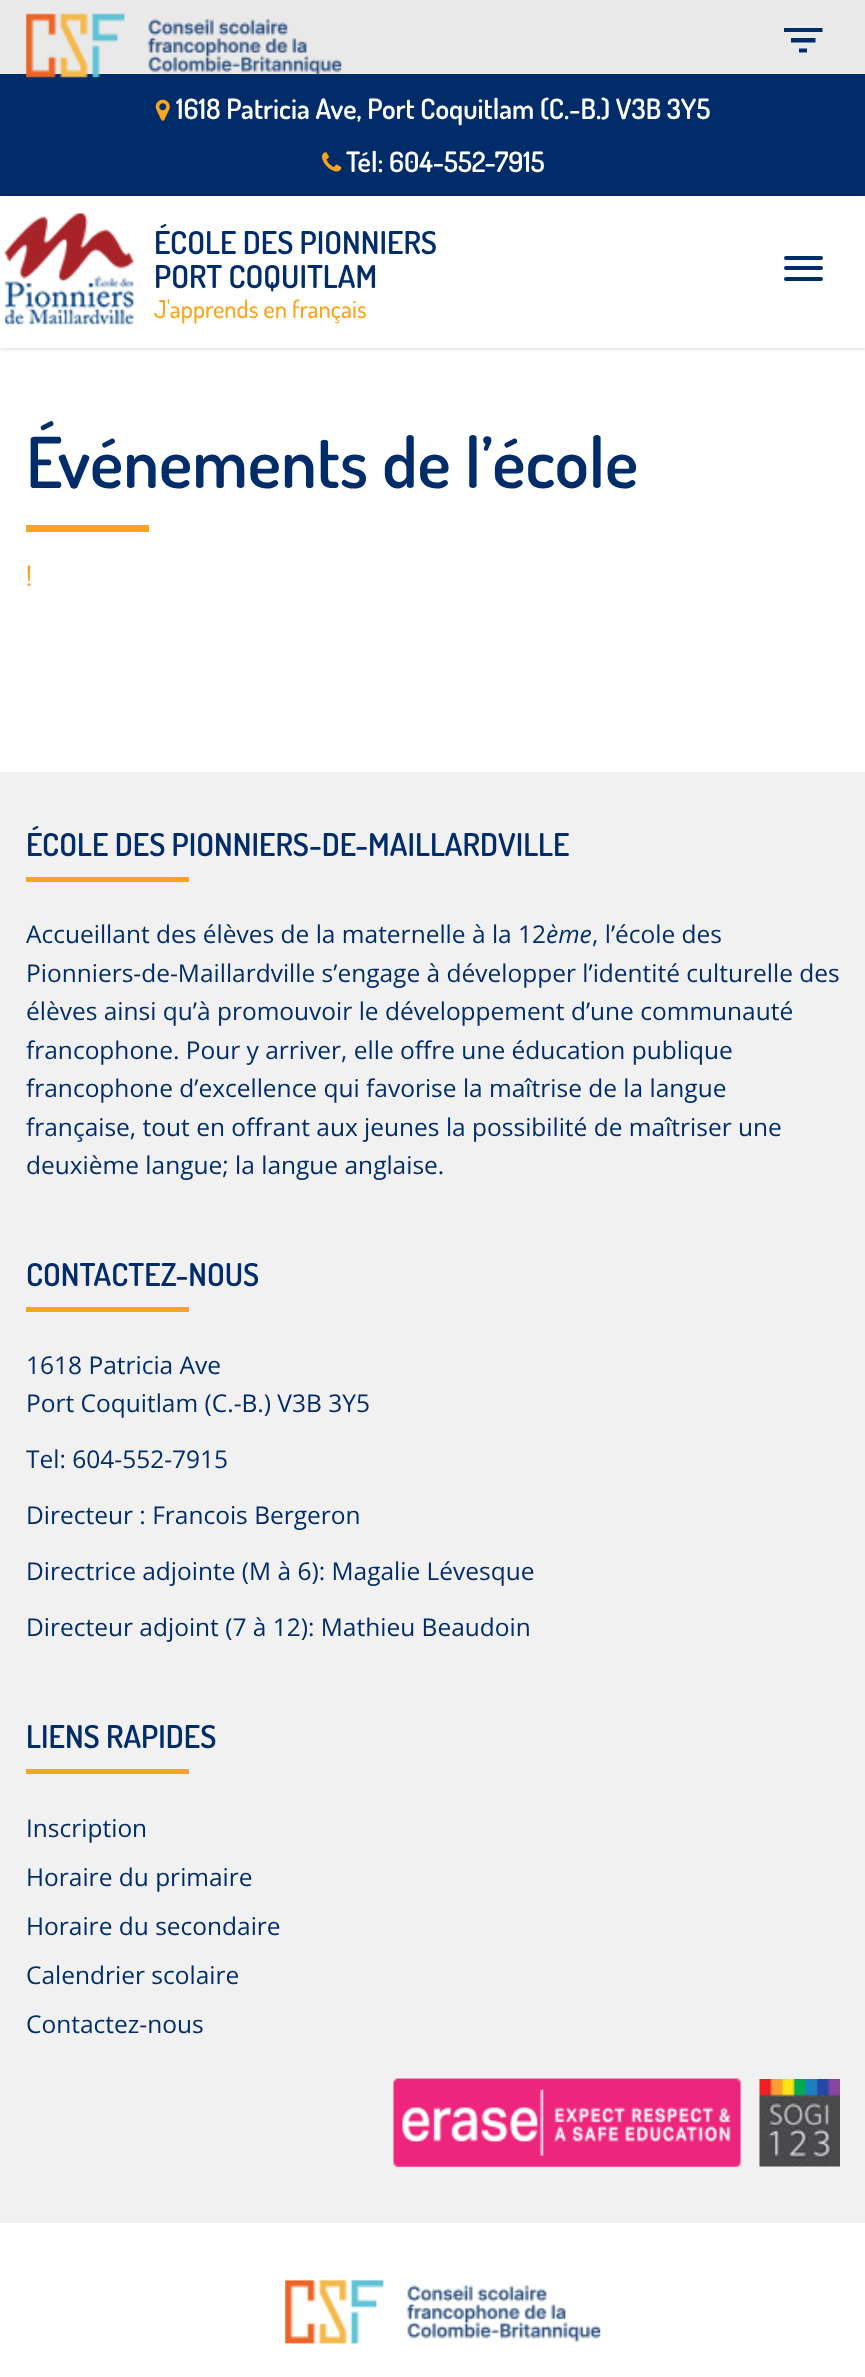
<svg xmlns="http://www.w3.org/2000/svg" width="865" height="2377">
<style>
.a{font:600 28px Dosis;fill:#fff}
.b{font:600 31.5px Dosis;fill:#002d69}
.c{font:500 24.5px Dosis;fill:#faa61a}
.d{font:600 70px Dosis;fill:#002d69}
.e{font:500 28px Dosis;fill:#faa61a}
.f{font:24.5px Open Sans;fill:#002d69}
.g{font:italic 24.5px Open Sans;fill:#002d69}
</style>
<defs>
<clipPath id="clip1"><path d="M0 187h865v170h-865zm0 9h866v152h-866z" clip-rule="evenodd"/></clipPath>
</defs>
<rect width="100%" height="100%" fill="#fff"/>
<path fill="#e9e9e9" d="M0 0h865v74H0z"/>
<path fill="#002d69" d="M0 74h865v122H0z"/>
<image href="1.png" x="26" y="13" width="316" height="65"/>
<path fill="#002d69" d="M799 52.5v-4h8v4zm-15-24.5h38.5v4h-38.5zm7 14.5v-4.5h24.5v4.5z"/>
<image href="2.png" x="155" y="99" width="15" height="22"/>
<image href="3.png" x="322" y="152" width="20" height="20"/>
<g clip-path="url(#clip1)">
<path fill="#00000036" filter="blur(2.5px)" d="M0 196h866v152H0z"/>
</g>
<image href="4.png" x="4" y="213" width="130" height="112"/>
<rect fill="#002d69" x="784" y="256" width="39" height="4" rx="2"/>
<rect fill="#002d69" x="784" y="266" width="39" height="4" rx="2"/>
<rect fill="#002d69" x="784" y="277" width="39" height="4" rx="2"/>
<path fill="#faa61a" d="M26 525h123v7H26z"/>
<path fill="#f1f1f1" d="M0 772h865v1451H0z"/>
<path fill="#faa61a" d="M26 877h163v5H26z"/>
<path fill="#faa61a" d="M26 1307h163v5H26z"/>
<path fill="#faa61a" d="M26 1769h163v5H26z"/>
<image href="5.png" x="393" y="2078" width="348" height="90"/>
<image href="6.png" x="759" y="2079" width="81" height="88"/>
<image href="7.png" x="285" y="2279" width="316" height="65"/>
<text class="a" x="176" y="119">1618 Patricia Ave, Port Coquitlam (C.-B.) V3B 3Y5</text>
<text class="a" x="346" y="172">Tél: 604-552-7915</text>
<text class="b" x="154" y="254">ÉCOLE DES PIONNIERS</text>
<text class="b" x="154" y="288">PORT COQUITLAM</text>
<text class="c" x="154" y="318">J'apprends en français</text>
<text class="d" x="26" y="488">Événements de l’école</text>
<text class="e" x="26" y="586">!</text>
<text class="b" x="26" y="856">ÉCOLE DES PIONNIERS-DE-MAILLARDVILLE</text>
<text class="f" x="26" y="943">Accueillant des élèves de la maternelle à la 12</text>
<text class="g" x="546" y="943">ème</text>
<text class="f" x="592" y="943">, l’école des</text>
<text class="f" x="26" y="982">Pionniers-de-Maillardville s’engage à développer l’identité culturelle des</text>
<text class="f" x="26" y="1020">élèves ainsi qu’à promouvoir le développement d’une communauté</text>
<text class="f" x="26" y="1059">francophone. Pour y arriver, elle offre une éducation publique</text>
<text class="f" x="26" y="1097">francophone d’excellence qui favorise la maîtrise de la langue</text>
<text class="f" x="26" y="1136">française, tout en offrant aux jeunes la possibilité de maîtriser une</text>
<text class="f" x="26" y="1174">deuxième langue; la langue anglaise.</text>
<text class="b" x="26" y="1286">CONTACTEZ-NOUS</text>
<text class="f" x="26" y="1374">1618 Patricia Ave</text>
<text class="f" x="26" y="1412">Port Coquitlam (C.-B.) V3B 3Y5</text>
<text class="f" x="26" y="1468">Tel: 604-552-7915</text>
<text class="f" x="26" y="1524">Directeur : Francois Bergeron</text>
<text class="f" x="26" y="1580">Directrice adjointe (M à 6): Magalie Lévesque</text>
<text class="f" x="26" y="1636">Directeur adjoint (7 à 12): Mathieu Beaudoin</text>
<text class="b" x="26" y="1748">LIENS RAPIDES</text>
<text class="f" x="26" y="1837">Inscription</text>
<text class="f" x="26" y="1886">Horaire du primaire</text>
<text class="f" x="26" y="1935">Horaire du secondaire</text>
<text class="f" x="26" y="1984">Calendrier scolaire</text>
<text class="f" x="26" y="2033">Contactez-nous</text>
</svg>
